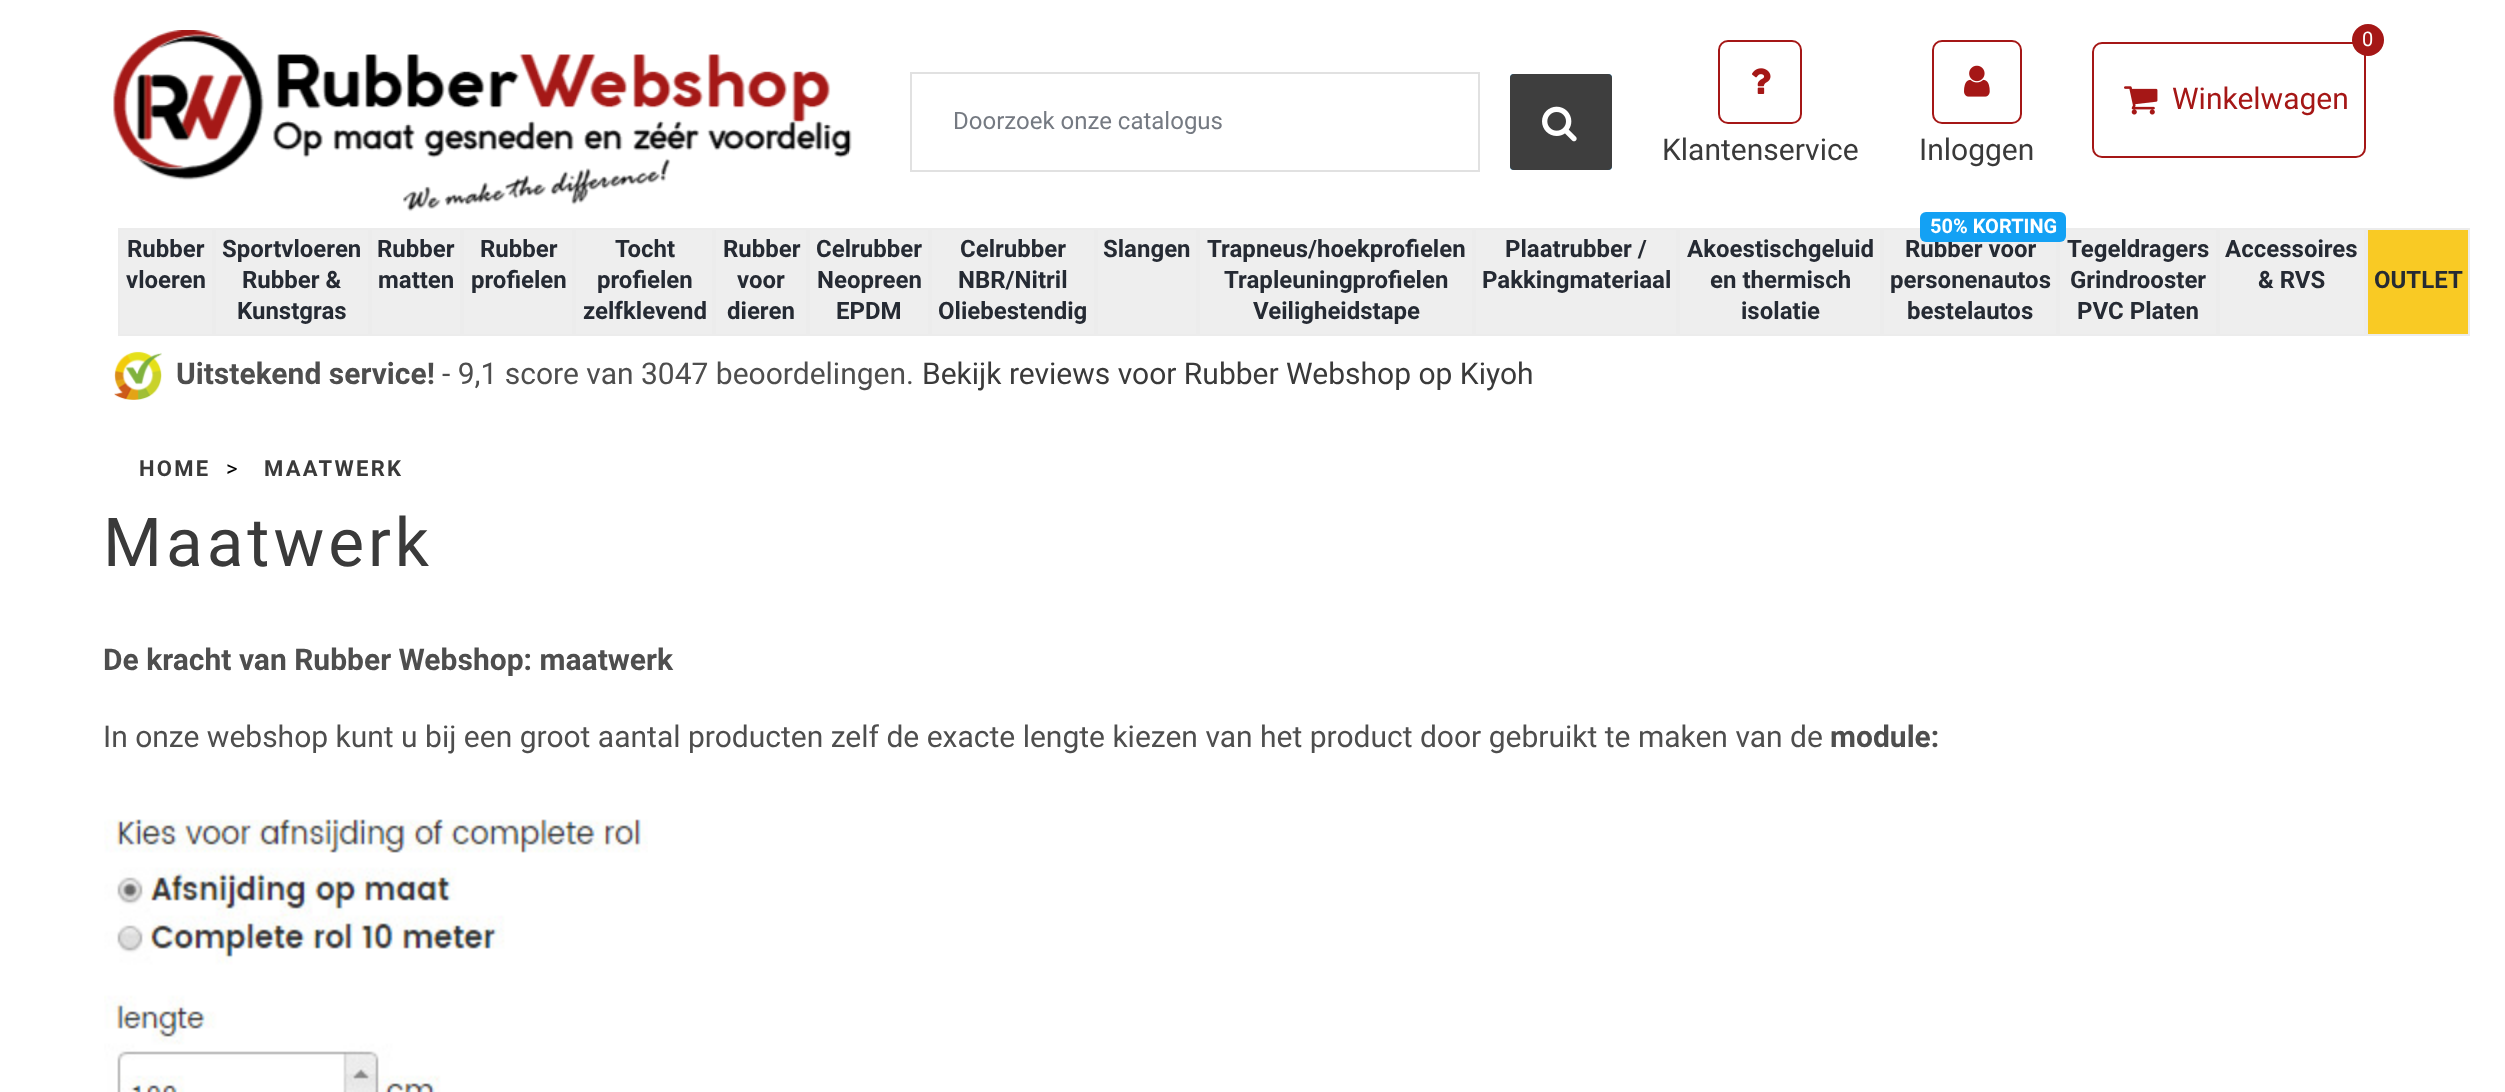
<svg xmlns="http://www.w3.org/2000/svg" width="2505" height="1092">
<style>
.a{font:24px Roboto;fill:#757a82}
.b{font:20px Roboto;fill:#fff}
.c{font:30px Roboto;fill:#a51716}
.d{font:30px Roboto;fill:#3a3a3a}
.e{font:bold 24px Roboto;fill:#252a33}
.f{font:bold 20px Roboto;fill:#fff}
.g{font:bold 30px Roboto;fill:#4e4e4e}
.h{font:30px Roboto;fill:#4e4e4e}
.i{font:bold 22px Roboto;letter-spacing:2.25px;fill:#3a3a3a}
.j{font:22px Roboto;letter-spacing:2.25px;fill:#000}
.k{font:67.5px Roboto;letter-spacing:4px;fill:#3a3a3a}
</style>
<rect width="100%" height="100%" fill="#fff"/>
<image href="1.png" x="113" y="30" width="739" height="182"/>
<path fill="none" stroke="#e1e1e1" stroke-width="2" d="M911 73h568v98H911z"/>
<rect fill="none" stroke="#13a1f4" stroke-width="4" x="1512" y="76" width="98" height="92" rx="2"/>
<rect fill="#3e3e3e" x="1510" y="74" width="102" height="96" rx="4"/>
<image href="2.png" x="1542" y="106" width="35" height="36"/>
<image href="3.png" x="2124" y="86" width="34" height="29"/>
<rect fill="none" stroke="#a51716" stroke-width="2" x="2093" y="43" width="272" height="114" rx="9"/>
<circle fill="#a51716" cx="2368" cy="40" r="16"/>
<image href="4.png" x="1752" y="68" width="19" height="26"/>
<rect fill="none" stroke="#a51716" stroke-width="2" x="1719" y="41" width="82" height="82" rx="9"/>
<image href="5.png" x="1964" y="65" width="26" height="32"/>
<rect fill="none" stroke="#a51716" stroke-width="2" x="1933" y="41" width="88" height="82" rx="9"/>
<path fill="#eee" d="M120 230h2244v104H120z"/>
<path fill="none" stroke="#ececec" stroke-width="2" d="M119 229h94v106H119z"/>
<path fill="none" stroke="#ececec" stroke-width="2" d="M215 229h154v106H215z"/>
<path fill="none" stroke="#ececec" stroke-width="2" d="M371 229h90v106H371z"/>
<path fill="none" stroke="#ececec" stroke-width="2" d="M463 229h110v106H463z"/>
<path fill="none" stroke="#ececec" stroke-width="2" d="M575 229h138v106H575z"/>
<path fill="none" stroke="#ececec" stroke-width="2" d="M715 229h92v106H715z"/>
<path fill="none" stroke="#ececec" stroke-width="2" d="M809 229h120v106H809z"/>
<path fill="none" stroke="#ececec" stroke-width="2" d="M931 229h164v106H931z"/>
<path fill="none" stroke="#ececec" stroke-width="2" d="M1097 229h100v106H1097z"/>
<path fill="none" stroke="#ececec" stroke-width="2" d="M1199 229h274v106H1199z"/>
<path fill="none" stroke="#ececec" stroke-width="2" d="M1475 229h202v106H1475z"/>
<path fill="none" stroke="#ececec" stroke-width="2" d="M1679 229h202v106H1679z"/>
<path fill="none" stroke="#ececec" stroke-width="2" d="M1883 229h174v106H1883z"/>
<path fill="none" stroke="#ececec" stroke-width="2" d="M2059 229h158v106H2059z"/>
<path fill="none" stroke="#ececec" stroke-width="2" d="M2219 229h146v106H2219z"/>
<path fill="#f9ca24" stroke="#ececec" stroke-width="2" d="M2367 229h102v106H2367z"/>
<image href="6.png" x="114" y="351" width="48" height="49"/>
<image href="7.png" x="104" y="819" width="544" height="273"/>
<text class="a" x="953" y="129">Doorzoek onze catalogus</text>
<text class="b" x="2362" y="46">0</text>
<text class="c" x="2172" y="109">Winkelwagen</text>
<text class="d" x="1662" y="160">Klantenservice</text>
<text class="d" x="1919" y="160">Inloggen</text>
<text class="e" x="127" y="257">Rubber</text>
<text class="e" x="126" y="288">vloeren</text>
<text class="e" x="222" y="257">Sportvloeren</text>
<text class="e" x="242" y="288">Rubber &amp;</text>
<text class="e" x="237" y="319">Kunstgras</text>
<text class="e" x="377" y="257">Rubber</text>
<text class="e" x="378" y="288">matten</text>
<text class="e" x="480" y="257">Rubber</text>
<text class="e" x="471" y="288">profielen</text>
<text class="e" x="615" y="257">Tocht</text>
<text class="e" x="597" y="288">profielen</text>
<text class="e" x="583" y="319">zelfklevend</text>
<text class="e" x="723" y="257">Rubber</text>
<text class="e" x="737" y="288">voor</text>
<text class="e" x="727" y="319">dieren</text>
<text class="e" x="816" y="257">Celrubber</text>
<text class="e" x="817" y="288">Neopreen</text>
<text class="e" x="836" y="319">EPDM</text>
<text class="e" x="960" y="257">Celrubber</text>
<text class="e" x="958" y="288">NBR/Nitril</text>
<text class="e" x="938" y="319">Oliebestendig</text>
<text class="e" x="1103" y="257">Slangen</text>
<text class="e" x="1207" y="257">Trapneus/hoekprofielen</text>
<text class="e" x="1224" y="288">Trapleuningprofielen</text>
<text class="e" x="1253" y="319">Veiligheidstape</text>
<text class="e" x="1505" y="257">Plaatrubber /</text>
<text class="e" x="1482" y="288">Pakkingmateriaal</text>
<text class="e" x="1687" y="257">Akoestischgeluid</text>
<text class="e" x="1710" y="288">en thermisch</text>
<text class="e" x="1741" y="319">isolatie</text>
<text class="e" x="1905" y="257">Rubber voor</text>
<rect fill="#13a1f4" x="1920" y="212" width="146" height="30" rx="6"/>
<text class="f" x="1930" y="233">50% KORTING</text>
<text class="e" x="1890" y="288">personenautos</text>
<text class="e" x="1907" y="319">bestelautos</text>
<text class="e" x="2067" y="257">Tegeldragers</text>
<text class="e" x="2070" y="288">Grindrooster</text>
<text class="e" x="2077" y="319">PVC Platen</text>
<text class="e" x="2225" y="257">Accessoires</text>
<text class="e" x="2258" y="288">&amp; RVS</text>
<text class="e" x="2374" y="288">OUTLET</text>
<text class="g" x="176" y="384">Uitstekend service!</text>
<text class="h" x="442" y="384">- 9,1 score van 3047 beoordelingen.</text>
<text class="d" x="922" y="384">Bekijk reviews voor Rubber Webshop op Kiyoh</text>
<text class="i" x="139" y="476">HOME</text>
<text class="j" x="226" y="476">&gt;</text>
<text class="i" x="264" y="476">MAATWERK</text>
<text class="k" x="103" y="566">Maatwerk</text>
<text class="g" x="103" y="670">De kracht van Rubber Webshop: maatwerk</text>
<text class="h" x="103" y="747">In onze webshop kunt u bij een groot aantal producten zelf de exacte lengte kiezen van het product door gebruikt te maken van de</text>
<text class="g" x="1830" y="747">module:</text>
</svg>
